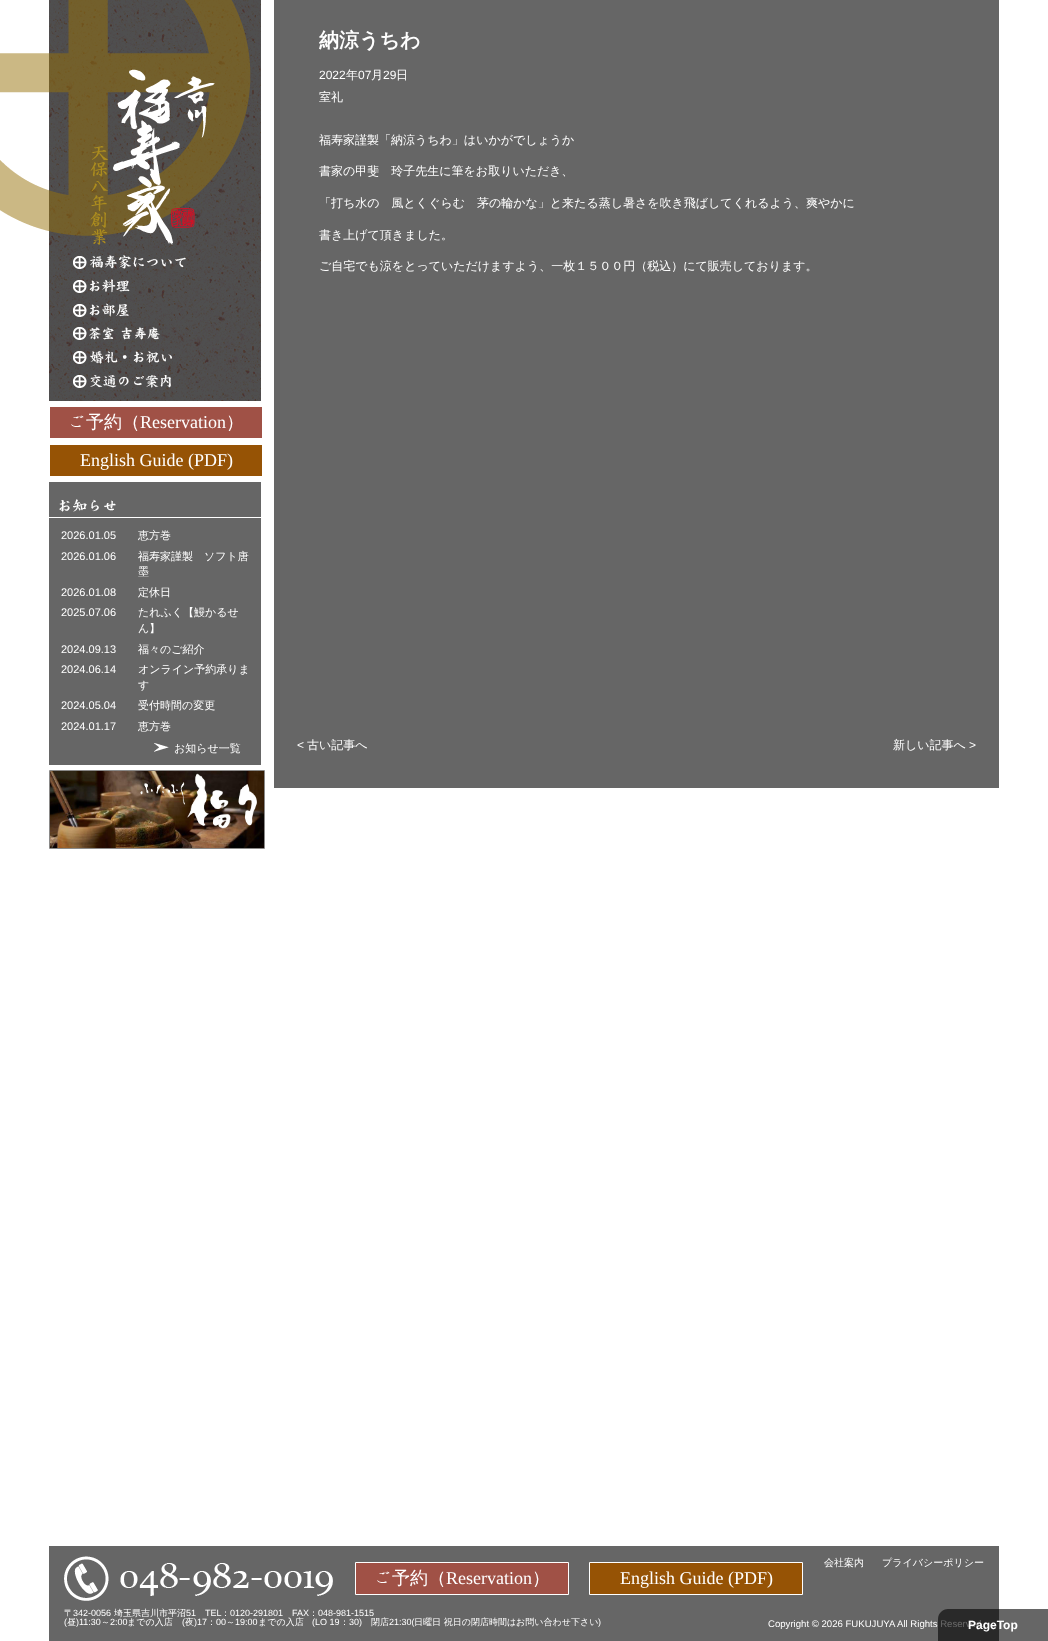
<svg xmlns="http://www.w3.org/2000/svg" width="1048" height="1641">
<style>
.a{font:bold 20px WenQuanYi Zen Hei;fill:#fff}
.b{font:12px Liberation Sans;fill:#fff}
.c{font:500 12px WenQuanYi Zen Hei;fill:#fff}
.d{font:18px Hannari;fill:#fff}
.e{font:500 18px WenQuanYi Zen Hei;fill:#fff}
.f{font:18px Liberation Serif;fill:#fff}
.g{font:11px Liberation Sans;fill:#fff}
.h{font:500 11px WenQuanYi Zen Hei;fill:#fff}
.i{font:500 10px WenQuanYi Zen Hei;fill:#fff}
.j{font:500 9px WenQuanYi Zen Hei;fill:#fff}
.k{font:9px Liberation Sans;fill:#fff}
.l{font:9.6px Liberation Sans;fill:#fff}
.m{font:bold 12px Liberation Sans;fill:#fff}
</style>
<rect width="100%" height="100%" fill="#fff"/>
<image href="2.png" x="49" y="0" width="212" height="401"/>
<image href="1.png" x="0" y="0" width="251" height="245"/>
<path fill="#666" d="M274 0h725v788H274z"/>
<image href="3.png" x="73" y="255" width="113" height="14"/>
<image href="4.png" x="73" y="279" width="57" height="14"/>
<image href="5.png" x="73" y="303" width="56" height="14"/>
<image href="6.png" x="73" y="327" width="87" height="13"/>
<image href="7.png" x="73" y="351" width="99" height="13"/>
<image href="8.png" x="73" y="375" width="98" height="13"/>
<path fill="#a05146" d="M50 407h212v31H50z"/>
<path fill="#965305" d="M50 445h212v31H50z"/>
<path fill="#666" d="M49 482h212v283H49z"/>
<path fill="#fff" d="M49 517h212v1H49z"/>
<image href="9.png" x="59" y="499" width="57" height="13"/>
<image href="10.png" x="154" y="743" width="15" height="9"/>
<path fill="none" stroke="#8a8988" d="M49.5 770.5h215v78H49.5z"/>
<image href="11.png" x="50" y="771" width="214" height="77"/>
<path fill="#666" d="M49 1546h950v95H49z"/>
<image href="12.png" x="64" y="1556" width="269" height="45"/>
<path fill="#a05146" stroke="#fff" d="M355.5 1562.5h213v32H355.5z"/>
<path fill="#965305" stroke="#fff" d="M589.5 1562.5h213v32H589.5z"/>
<text class="a" x="319" y="47">納涼うちわ</text>
<text class="b" x="319" y="79">2022</text>
<text class="c" x="346" y="79">年</text>
<text class="b" x="358" y="79">07</text>
<text class="c" x="371" y="79">月</text>
<text class="b" x="383" y="79">29</text>
<text class="c" x="396" y="79">日</text>
<text class="c" x="319" y="101">室礼</text>
<text class="c" x="319" y="144">福寿家謹製「納涼うちわ」はいかがでしょうか</text>
<text class="c" x="319" y="175">書家の甲斐　玲子先生に筆をお取りいただき、</text>
<text class="c" x="319" y="207">「打ち水の　風とくぐらむ　茅の輪かな」と来たる蒸し暑さを吹き飛ばしてくれるよう、爽やかに</text>
<text class="c" x="319" y="239">書き上げて頂きました。</text>
<text class="c" x="319" y="270">ご自宅でも涼をとっていただけますよう、一枚１５００円（税込）にて販売しております。</text>
<text class="b" x="297" y="749">&lt;</text>
<text class="c" x="307" y="749">古い記事へ</text>
<text class="c" x="893" y="749">新しい記事へ</text>
<text class="b" x="969" y="749">&gt;</text>
<text class="d" x="68" y="428">ご</text>
<text class="e" x="86" y="428">予約（</text>
<text class="f" x="140" y="428">Reservation</text>
<text class="e" x="226" y="428">）</text>
<text class="f" x="80" y="466">English Guide (PDF)</text>
<text class="g" x="61" y="539">2026.01.05</text>
<text class="h" x="138" y="539">恵方巻</text>
<text class="g" x="61" y="560">2026.01.06</text>
<text class="h" x="138" y="560">福寿家謹製　ソフト唐</text>
<text class="h" x="138" y="575">墨</text>
<text class="g" x="61" y="596">2026.01.08</text>
<text class="h" x="138" y="596">定休日</text>
<text class="g" x="61" y="616">2025.07.06</text>
<text class="h" x="138" y="616">たれふく【鰻かるせ</text>
<text class="h" x="138" y="632">ん】</text>
<text class="g" x="61" y="653">2024.09.13</text>
<text class="h" x="138" y="653">福々のご紹介</text>
<text class="g" x="61" y="673">2024.06.14</text>
<text class="h" x="138" y="673">オンライン予約承りま</text>
<text class="h" x="138" y="689">す</text>
<text class="g" x="61" y="709">2024.05.04</text>
<text class="h" x="138" y="709">受付時間の変更</text>
<text class="g" x="61" y="730">2024.01.17</text>
<text class="h" x="138" y="730">恵方巻</text>
<text class="h" x="174" y="752">お知らせ一覧</text>
<text class="i" x="824" y="1566">会社案内</text>
<text class="i" x="882" y="1566">プライバシーポリシー</text>
<text class="d" x="374" y="1584">ご</text>
<text class="e" x="392" y="1584">予約（</text>
<text class="f" x="446" y="1584">Reservation</text>
<text class="e" x="532" y="1584">）</text>
<text class="f" x="620" y="1584">English Guide (PDF)</text>
<text class="j" x="64" y="1616">〒</text>
<text class="k" x="73" y="1616">342-0056</text>
<text class="j" x="114" y="1616">埼玉県吉川市平沼</text>
<text class="k" x="186" y="1616">51</text>
<text class="k" x="205" y="1616">TEL</text>
<text class="j" x="221" y="1616">：</text>
<text class="k" x="230" y="1616">0120-291801</text>
<text class="k" x="292" y="1616">FAX</text>
<text class="j" x="309" y="1616">：</text>
<text class="k" x="318" y="1616">048-981-1515</text>
<text class="k" x="64" y="1625">(</text>
<text class="j" x="67" y="1625">昼</text>
<text class="k" x="76" y="1625">)11:30</text>
<text class="j" x="101" y="1625">～</text>
<text class="k" x="110" y="1625">2:00</text>
<text class="j" x="127" y="1625">までの入店</text>
<text class="k" x="182" y="1625">(</text>
<text class="j" x="185" y="1625">夜</text>
<text class="k" x="194" y="1625">)17</text>
<text class="j" x="207" y="1625">：</text>
<text class="k" x="216" y="1625">00</text>
<text class="j" x="226" y="1625">～</text>
<text class="k" x="235" y="1625">19:00</text>
<text class="j" x="258" y="1625">までの入店</text>
<text class="k" x="312" y="1625">(LO 19</text>
<text class="j" x="340" y="1625">：</text>
<text class="k" x="349" y="1625">30)</text>
<text class="j" x="371" y="1625">閉店</text>
<text class="k" x="389" y="1625">21:30(</text>
<text class="j" x="414" y="1625">日曜日 祝日の閉店時間はお問い合わせ下さい</text>
<text class="k" x="598" y="1625">)</text>
<text class="l" x="768" y="1627">Copyright © 2026 FUKUJUYA All Rights Reserved.</text>
<path fill="#00000099" d="M948 1609h100v32h-110v-22c0-5.5 4.5-10 10-10z"/>
<text class="m" x="968" y="1629">PageTop</text>
</svg>
